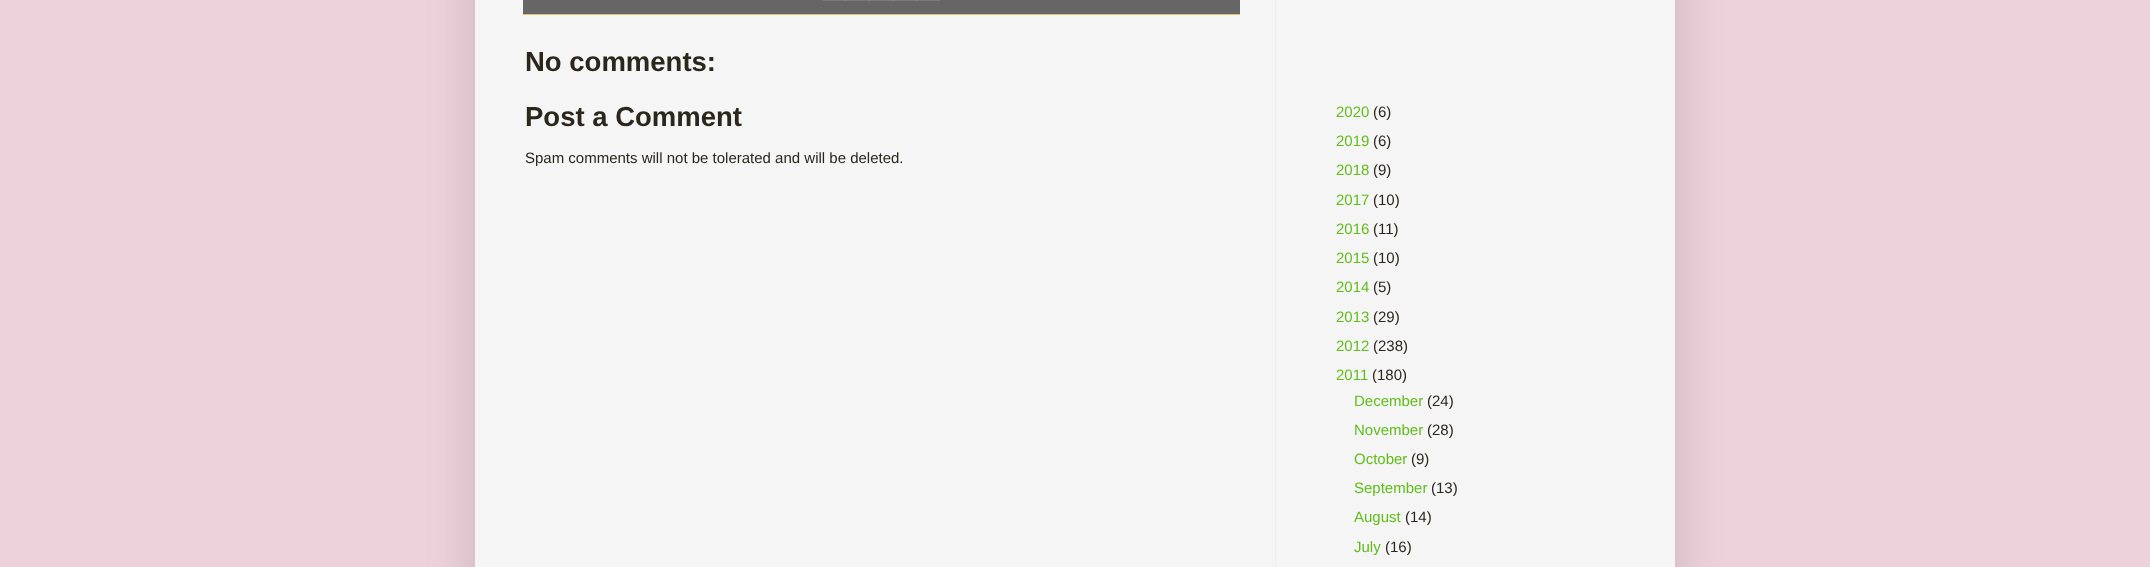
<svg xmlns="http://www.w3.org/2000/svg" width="2150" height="567">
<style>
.a{font:bold 27.5px Liberation Sans;fill:#2c271c}
.b{font:15px Liberation Sans;fill:#2c271c}
.c{font:15px Liberation Sans;fill:#5fbd19}
</style>
<rect width="100%" height="100%" fill="#edd2db"/>
<path fill="#00000026" filter="blur(25px)" d="M475 -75h1200v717H475z"/>
<path fill="#f5f5f5" d="M475 0h1200v567H475z"/>
<path fill="#eee" d="M1275 0h1v567H1275z"/>
<path fill="#666" d="M523 0h717v14H523z"/>
<path fill="#ddc366" d="M523 14h717v1H523z"/>
<image href="1.png" x="822" y="0" width="25" height="1"/>
<path fill="#bbbbbb40" d="M845 0h25v1H845z"/>
<image href="2.png" x="868" y="0" width="26" height="1"/>
<image href="3.png" x="892" y="0" width="26" height="1"/>
<image href="4.png" x="916" y="0" width="24" height="1"/>
<text class="a" x="525" y="71">No comments:</text>
<text class="a" x="525" y="126">Post a Comment</text>
<text class="b" x="525" y="163">Spam comments will not be tolerated and will be deleted.</text>
<text class="c" x="1336" y="117">2020</text>
<text class="b" x="1373" y="117">(6)</text>
<text class="c" x="1336" y="146">2019</text>
<text class="b" x="1373" y="146">(6)</text>
<text class="c" x="1336" y="175">2018</text>
<text class="b" x="1373" y="175">(9)</text>
<text class="c" x="1336" y="205">2017</text>
<text class="b" x="1373" y="205">(10)</text>
<text class="c" x="1336" y="234">2016</text>
<text class="b" x="1373" y="234">(11)</text>
<text class="c" x="1336" y="263">2015</text>
<text class="b" x="1373" y="263">(10)</text>
<text class="c" x="1336" y="292">2014</text>
<text class="b" x="1373" y="292">(5)</text>
<text class="c" x="1336" y="322">2013</text>
<text class="b" x="1373" y="322">(29)</text>
<text class="c" x="1336" y="351">2012</text>
<text class="b" x="1373" y="351">(238)</text>
<text class="c" x="1336" y="380">2011</text>
<text class="b" x="1372" y="380">(180)</text>
<text class="c" x="1354" y="406">December</text>
<text class="b" x="1427" y="406">(24)</text>
<text class="c" x="1354" y="435">November</text>
<text class="b" x="1427" y="435">(28)</text>
<text class="c" x="1354" y="464">October</text>
<text class="b" x="1411" y="464">(9)</text>
<text class="c" x="1354" y="493">September</text>
<text class="b" x="1431" y="493">(13)</text>
<text class="c" x="1354" y="522">August</text>
<text class="b" x="1405" y="522">(14)</text>
<text class="c" x="1354" y="552">July</text>
<text class="b" x="1385" y="552">(16)</text>
</svg>
